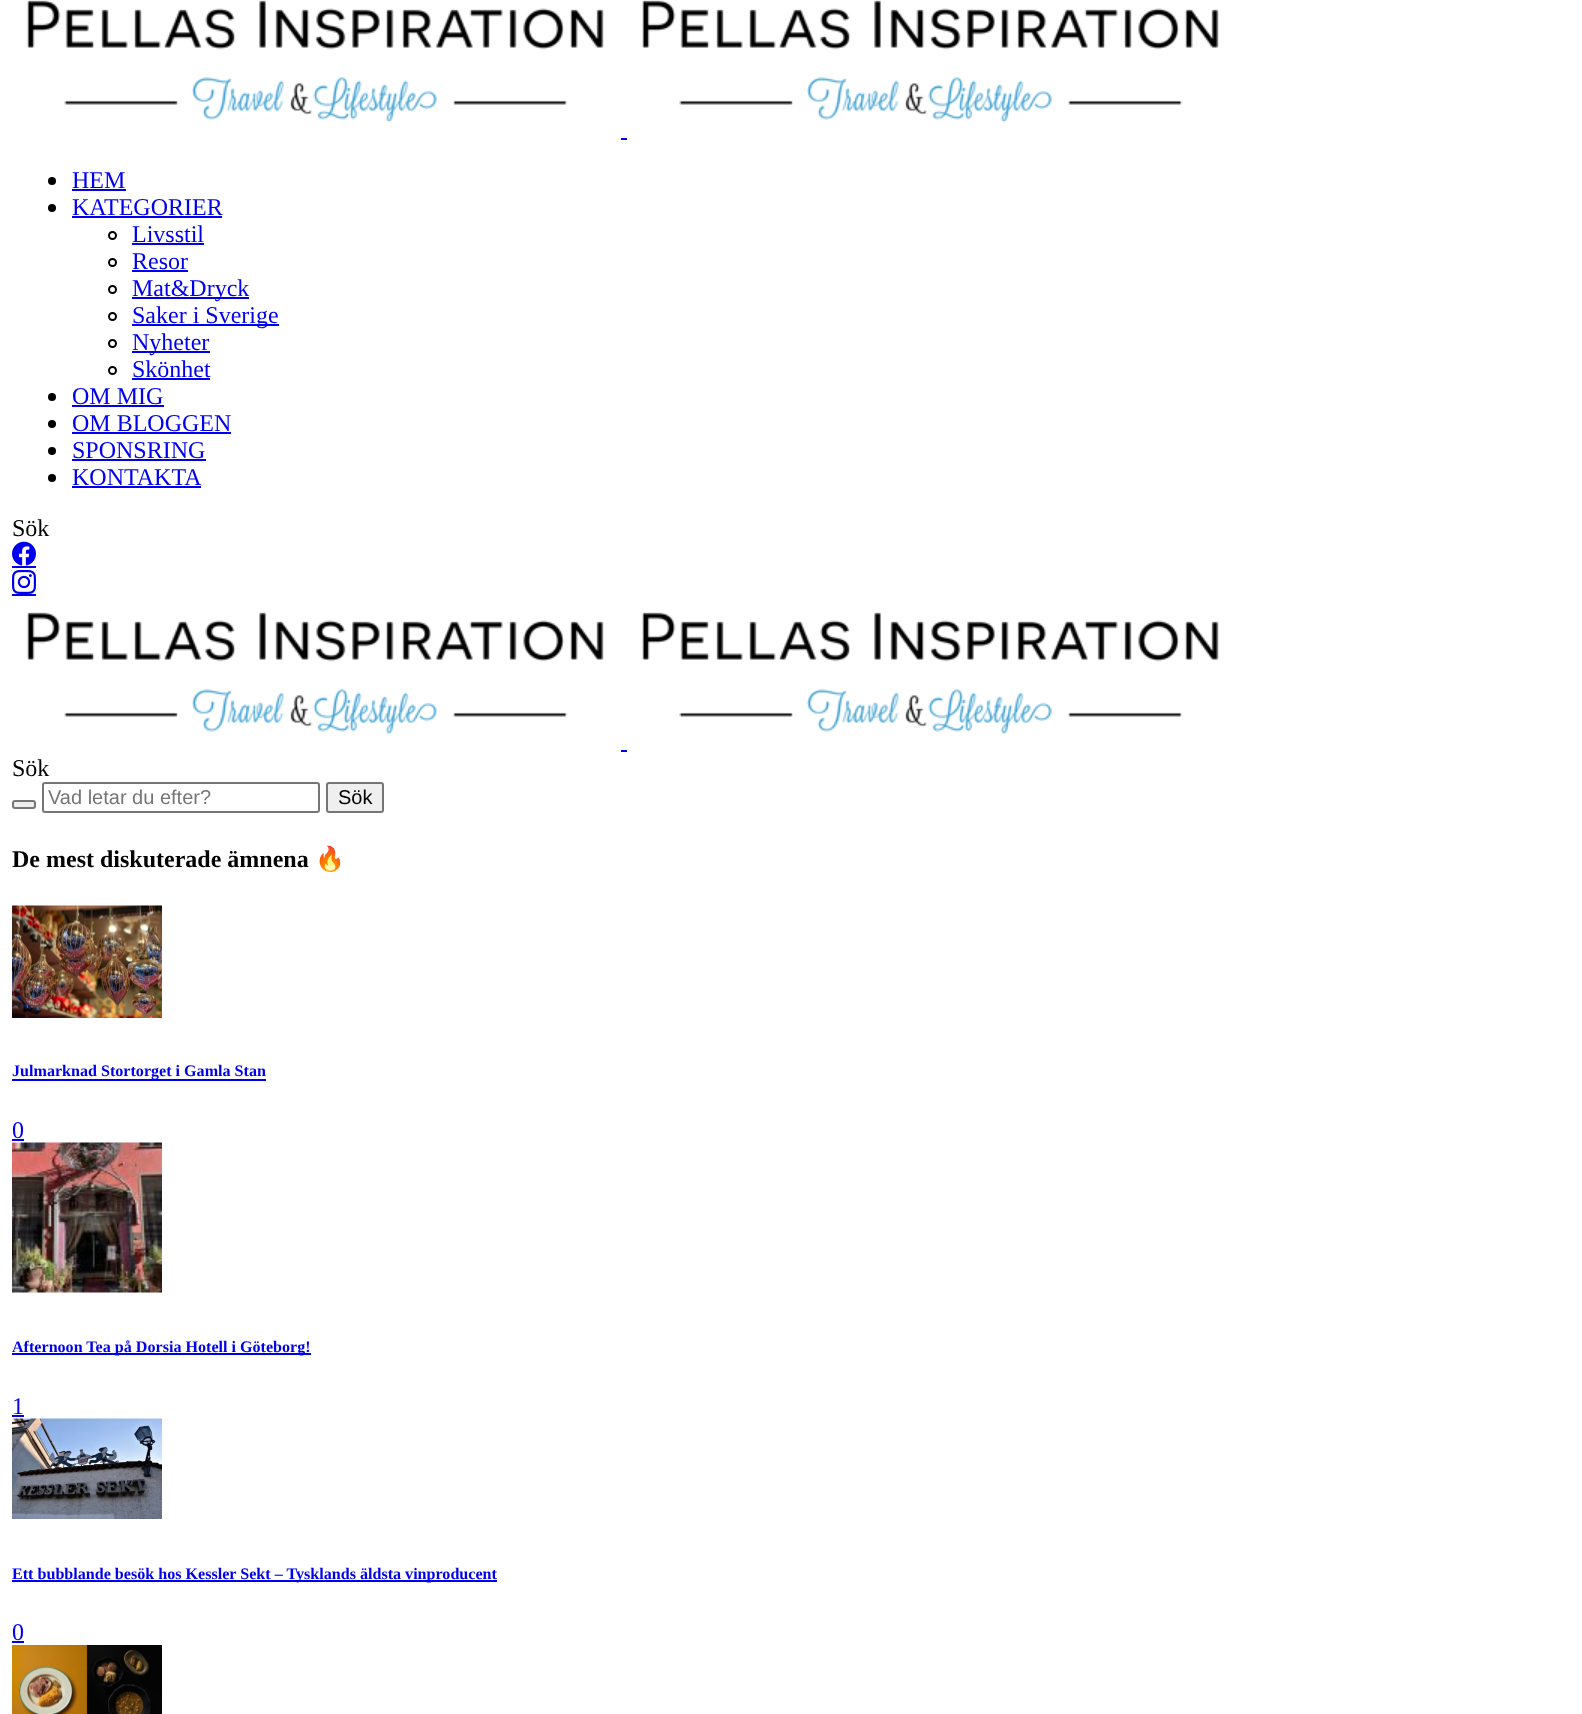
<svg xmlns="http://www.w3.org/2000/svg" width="1582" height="1714">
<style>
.a{font:24px Liberation Serif;fill:#00e}
.b{font:24px Liberation Serif;fill:#000}
.c{font:20px Liberation Sans;fill:#757575}
.d{font:20px Liberation Sans;fill:#000}
.e{font:bold 24px Liberation Serif;fill:#000}
.f{font:bold 24px Noto Color Emoji;fill:#000}
.g{font:bold 16.1px Liberation Serif;fill:#00e}
</style>
<rect width="100%" height="100%" fill="#fff"/>
<image href="1.png" x="26" y="0" width="578" height="122"/>
<image href="1.png" x="641" y="0" width="578" height="122"/>
<path fill="#00e" d="M621 138h6v2H621z"/>
<circle fill="#000" cx="52" cy="181" r="4"/>
<path fill="#00e" d="M72 189h54v2H72z"/>
<circle fill="#000" cx="52" cy="208" r="4"/>
<path fill="#00e" d="M72 216h150v2H72z"/>
<circle fill="none" stroke="#000" stroke-width="2" cx="112.5" cy="235.5" r="3.5"/>
<path fill="#00e" d="M132 243h72v2H132z"/>
<circle fill="none" stroke="#000" stroke-width="2" cx="112.5" cy="262.5" r="3.5"/>
<path fill="#00e" d="M132 270h56v2H132z"/>
<circle fill="none" stroke="#000" stroke-width="2" cx="112.5" cy="289.5" r="3.5"/>
<path fill="#00e" d="M132 297h117v2H132z"/>
<circle fill="none" stroke="#000" stroke-width="2" cx="112.5" cy="316.5" r="3.5"/>
<path fill="#00e" d="M132 324h147v2H132z"/>
<circle fill="none" stroke="#000" stroke-width="2" cx="112.5" cy="343.5" r="3.5"/>
<path fill="#00e" d="M132 351h78v2H132z"/>
<circle fill="none" stroke="#000" stroke-width="2" cx="112.5" cy="370.5" r="3.5"/>
<path fill="#00e" d="M132 378h78v2H132z"/>
<circle fill="#000" cx="52" cy="397" r="4"/>
<path fill="#00e" d="M72 405h92v2H72z"/>
<circle fill="#000" cx="52" cy="424" r="4"/>
<path fill="#00e" d="M72 432h159v2H72z"/>
<circle fill="#000" cx="52" cy="451" r="4"/>
<path fill="#00e" d="M72 459h134v2H72z"/>
<circle fill="#000" cx="52" cy="478" r="4"/>
<path fill="#00e" d="M72 486h129v2H72z"/>
<image href="2.png" x="12" y="541" width="24" height="25"/>
<path fill="#00e" d="M12 566h24v2H12z"/>
<image href="3.png" x="12" y="570" width="24" height="24"/>
<path fill="#00e" d="M12 594h24v2H12z"/>
<image href="1.png" x="26" y="612" width="578" height="122"/>
<image href="1.png" x="641" y="612" width="578" height="122"/>
<path fill="#00e" d="M621 750h6v2H621z"/>
<rect fill="#efefef" stroke="#767676" stroke-width="2" x="13" y="801" width="22" height="7" rx="2"/>
<rect fill="none" stroke="#767676" stroke-width="2" x="43" y="783" width="276" height="29" rx="2"/>
<rect fill="#efefef" stroke="#767676" stroke-width="2" x="327" y="783" width="56" height="29" rx="2"/>
<image href="4.png" x="12" y="905" width="150" height="113"/>
<path fill="#00e" d="M12 1079h254v2H12z"/>
<path fill="#00e" d="M12 1139h12v2H12z"/>
<image href="5.png" x="12" y="1142" width="150" height="151"/>
<path fill="#00e" d="M12 1353h299v2H12z"/>
<path fill="#00e" d="M12 1415h12v2H12z"/>
<image href="6.png" x="12" y="1418" width="150" height="101"/>
<path fill="#00e" d="M12 1580h485v2H12z"/>
<path fill="#00e" d="M12 1641h12v2H12z"/>
<image href="7.png" x="12" y="1645" width="150" height="69"/>
<text class="a" x="72" y="188">HEM</text>
<text class="a" x="72" y="215">KATEGORIER</text>
<text class="a" x="132" y="242">Livsstil</text>
<text class="a" x="132" y="269">Resor</text>
<text class="a" x="132" y="296">Mat&amp;Dryck</text>
<text class="a" x="132" y="323">Saker i Sverige</text>
<text class="a" x="132" y="350">Nyheter</text>
<text class="a" x="132" y="377">Skönhet</text>
<text class="a" x="72" y="404">OM MIG</text>
<text class="a" x="72" y="431">OM BLOGGEN</text>
<text class="a" x="72" y="458">SPONSRING</text>
<text class="a" x="72" y="485">KONTAKTA</text>
<text class="b" x="12" y="536">Sök</text>
<text class="b" x="12" y="776">Sök</text>
<text class="c" x="48" y="804">Vad letar du efter?</text>
<text class="d" x="338" y="804">Sök</text>
<text class="e" x="12" y="867">De mest diskuterade ämnena</text>
<text class="f" x="315" y="867">🔥</text>
<text class="g" x="12" y="1076">Julmarknad Stortorget i Gamla Stan</text>
<text class="a" x="12" y="1138">0</text>
<text class="g" x="12" y="1352">Afternoon Tea på Dorsia Hotell i Göteborg!</text>
<text class="a" x="12" y="1414">1</text>
<text class="g" x="12" y="1579">Ett bubblande besök hos Kessler Sekt – Tysklands äldsta vinproducent</text>
<text class="a" x="12" y="1640">0</text>
</svg>
